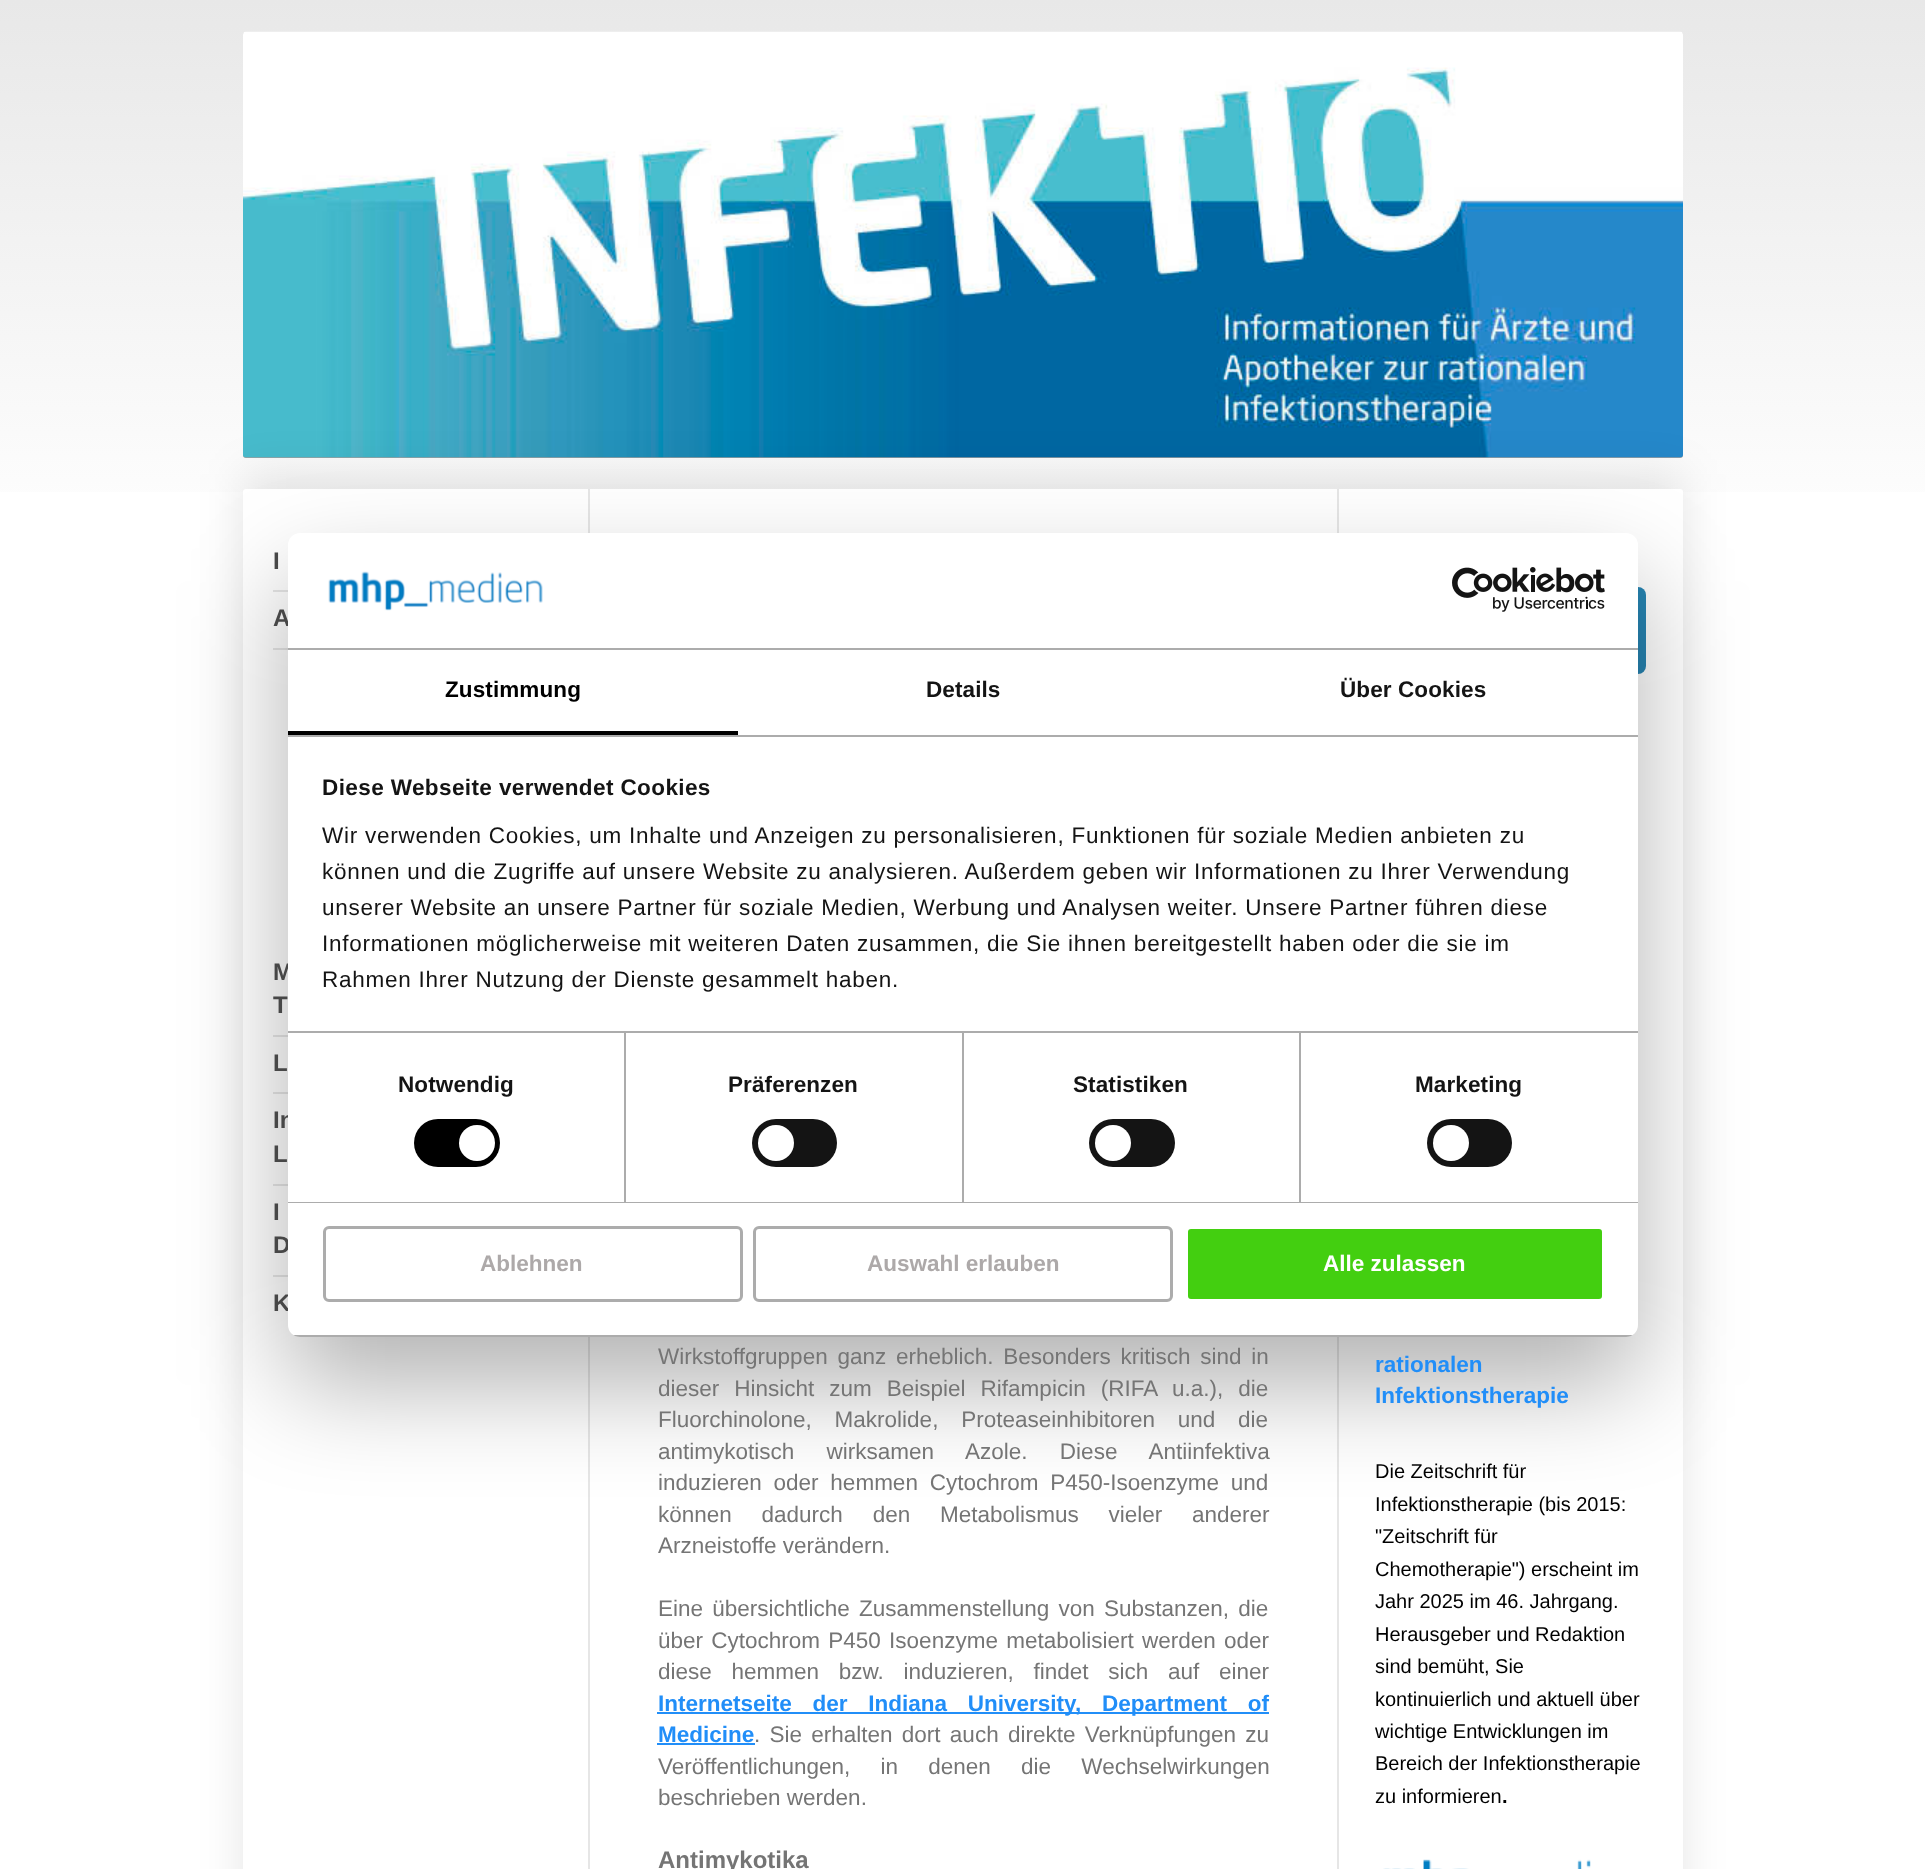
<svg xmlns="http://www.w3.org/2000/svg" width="1925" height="1869">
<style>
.a{font:bold 24px Liberation Sans;fill:#474747}
.b{font:22.5px Liberation Sans;fill:#757575}
.c{font:bold 22.5px Liberation Sans;fill:#218ef8}
.d{font:bold 24px Liberation Sans;fill:#757575}
.e{font:20px Liberation Sans;fill:#000}
.f{font:bold 20px Liberation Sans;fill:#000}
.g{font:bold 22.5px Liberation Sans;letter-spacing:0.1px;fill:#000}
.h{font:bold 22.5px Liberation Sans;letter-spacing:0.1px;fill:#141414}
.i{font:bold 22.5px Liberation Sans;letter-spacing:0.4px;fill:#141414}
.j{font:22.5px Liberation Sans;letter-spacing:0.75px;fill:#141414}
.k{font:bold 22.5px Liberation Sans;fill:#ada9a9}
.l{font:bold 22.5px Liberation Sans;fill:#fff}
</style>
<defs>
<linearGradient id="g1" gradientUnits="userSpaceOnUse" x1="0" y1="552" x2="0" y2="0"><stop offset="0" stop-color="#fff"/><stop offset="1" stop-color="#e8e8e8"/></linearGradient>
<clipPath id="clip1"><rect x="288" y="533" width="1350" height="804" rx="12"/></clipPath>
</defs>
<rect width="100%" height="100%" fill="#fff"/>
<path fill="url(#g1)" d="M0 0h1925v492H0z"/>
<rect fill="#a0a0a0" x="243" y="32" width="1440" height="426" rx="3"/>
<image href="1.png" x="243" y="31" width="1440" height="427"/>
<rect fill="#0000001a" filter="blur(22.5px)" x="243" y="474" width="1440" height="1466" rx="3"/>
<rect fill="#fff" x="243" y="489" width="1440" height="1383" rx="3"/>
<path fill="#e6e6e6" d="M273 590h15v2H273z"/>
<path fill="#e6e6e6" d="M273 648h15v2H273z"/>
<path fill="#e6e6e6" d="M273 1035h15v2H273z"/>
<path fill="#e6e6e6" d="M273 1092h15v2H273z"/>
<path fill="#e6e6e6" d="M273 1184h15v2H273z"/>
<path fill="#e6e6e6" d="M273 1275h15v2H273z"/>
<path fill="#e6e6e6" d="M1337 489h2v1380H1337z"/>
<path fill="#e6e6e6" d="M588 489h2v1380H588z"/>
<path fill="#218ef8" d="M657 1712h612v2H657z"/>
<path fill="#218ef8" d="M657 1743h98v2H657z"/>
<rect fill="#2785b3" x="1376" y="587" width="270" height="87" rx="8"/>
<image href="2.png" x="1383" y="1859" width="208" height="10"/>
<rect fill="#0000004d" filter="blur(51px)" x="288" y="581" width="1350" height="804" rx="12"/>
<text class="a" x="273" y="569">I</text>
<text class="a" x="273" y="626">A</text>
<text class="a" x="273" y="980">M</text>
<text class="a" x="273" y="1013">T</text>
<text class="a" x="273" y="1071">L</text>
<text class="a" x="273" y="1128">In</text>
<text class="a" x="273" y="1162">L</text>
<text class="a" x="273" y="1220">I</text>
<text class="a" x="273" y="1253">D</text>
<text class="a" x="273" y="1311">K</text>
<text class="b" x="658" y="1364" word-spacing="3.5">Wirkstoffgruppen ganz erheblich. Besonders kritisch sind in</text>
<text class="b" x="658" y="1396" word-spacing="8.75">dieser Hinsicht zum Beispiel Rifampicin (RIFA u.a.), die</text>
<text class="b" x="658" y="1427" word-spacing="16.5">Fluorchinolone, Makrolide, Proteaseinhibitoren und die</text>
<text class="b" x="658" y="1459" word-spacing="26">antimykotisch wirksamen Azole. Diese Antiinfektiva</text>
<text class="b" x="658" y="1490" word-spacing="5.5">induzieren oder hemmen Cytochrom P450-Isoenzyme und</text>
<text class="b" x="658" y="1522" word-spacing="23.5">können dadurch den Metabolismus vieler anderer</text>
<text class="b" x="658" y="1553">Arzneistoffe verändern.</text>
<text class="b" x="658" y="1616" word-spacing="3">Eine übersichtliche Zusammenstellung von Substanzen, die</text>
<text class="b" x="658" y="1648" word-spacing="2">über Cytochrom P450 Isoenzyme metabolisiert werden oder</text>
<text class="b" x="658" y="1679" word-spacing="13.5">diese hemmen bzw. induzieren, findet sich auf einer</text>
<text class="c" x="658" y="1711" word-spacing="14.5">Internetseite der Indiana University, Department of</text>
<text class="c" x="658" y="1742">Medicine</text>
<text class="b" x="754" y="1742" word-spacing="3">. Sie erhalten dort auch direkte Verknüpfungen zu</text>
<text class="b" x="658" y="1774" word-spacing="24">Veröffentlichungen, in denen die Wechselwirkungen</text>
<text class="b" x="658" y="1805">beschrieben werden.</text>
<text class="d" x="658" y="1868">Antimykotika</text>
<text class="c" x="1375" y="1372">rationalen</text>
<text class="c" x="1375" y="1403">Infektionstherapie</text>
<text class="e" x="1375" y="1478">Die Zeitschrift für</text>
<text class="e" x="1375" y="1511">Infektionstherapie (bis 2015:</text>
<text class="e" x="1375" y="1543">"Zeitschrift für</text>
<text class="e" x="1375" y="1576">Chemotherapie") erscheint im</text>
<text class="e" x="1375" y="1608">Jahr 2025 im 46. Jahrgang.</text>
<text class="e" x="1375" y="1641">Herausgeber und Redaktion</text>
<text class="e" x="1375" y="1673">sind bemüht, Sie</text>
<text class="e" x="1375" y="1706">kontinuierlich und aktuell über</text>
<text class="e" x="1375" y="1738">wichtige Entwicklungen im</text>
<text class="e" x="1375" y="1770">Bereich der Infektionstherapie</text>
<text class="e" x="1375" y="1803">zu informieren</text>
<text class="f" x="1502" y="1803">.</text>
<rect fill="#fff" x="288" y="533" width="1350" height="804" rx="12"/>
<path fill="#acacac" d="M288 648h1350v2H288z"/>
<image href="3.png" x="328" y="571" width="215" height="40"/>
<image href="4.png" x="1452" y="567" width="153" height="45"/>
<path fill="#acacac" d="M288 735h1350v2H288z"/>
<path fill="#000" d="M288 731h450v4H288z"/>
<text class="g" x="445" y="697">Zustimmung</text>
<text class="h" x="926" y="697">Details</text>
<text class="h" x="1340" y="697">Über Cookies</text>
<text class="i" x="322" y="795">Diese Webseite verwendet Cookies</text>
<text class="j" x="322" y="843">Wir verwenden Cookies, um Inhalte und Anzeigen zu personalisieren, Funktionen für soziale Medien anbieten zu</text>
<text class="j" x="322" y="879">können und die Zugriffe auf unsere Website zu analysieren. Außerdem geben wir Informationen zu Ihrer Verwendung</text>
<text class="j" x="322" y="915">unserer Website an unsere Partner für soziale Medien, Werbung und Analysen weiter. Unsere Partner führen diese</text>
<text class="j" x="322" y="951">Informationen möglicherweise mit weiteren Daten zusammen, die Sie ihnen bereitgestellt haben oder die sie im</text>
<text class="j" x="322" y="987">Rahmen Ihrer Nutzung der Dienste gesammelt haben.</text>
<path fill="#acacac" d="M288 1202h1350v1H288z"/>
<path fill="#acacac" d="M624 1032h2v170H624z"/>
<text class="h" x="398" y="1092">Notwendig</text>
<rect fill="#000" x="414" y="1119" width="86" height="48" rx="24"/>
<circle fill="#fff" cx="477" cy="1143" r="18"/>
<path fill="#acacac" d="M962 1032h2v170H962z"/>
<text class="h" x="728" y="1092">Präferenzen</text>
<rect fill="#141414" x="752" y="1119" width="85" height="48" rx="24"/>
<circle fill="#fff" cx="776" cy="1143" r="18"/>
<path fill="#acacac" d="M1299 1032h2v170H1299z"/>
<path fill="#acacac" d="M288 1031h1350v2H288z"/>
<text class="h" x="1073" y="1092">Statistiken</text>
<rect fill="#141414" x="1089" y="1119" width="86" height="48" rx="24"/>
<circle fill="#fff" cx="1113" cy="1143" r="18"/>
<text class="h" x="1415" y="1092">Marketing</text>
<rect fill="#141414" x="1427" y="1119" width="85" height="48" rx="24"/>
<circle fill="#fff" cx="1451" cy="1143" r="18"/>
<g clip-path="url(#clip1)">
<path fill="#acacac" d="M288 1335h1350v2H288z"/>
</g>
<rect fill="none" stroke="#acacac" stroke-width="3" x="324.5" y="1227.5" width="417" height="73" rx="4.5"/>
<text class="k" x="480" y="1271">Ablehnen</text>
<rect fill="none" stroke="#acacac" stroke-width="3" x="754.5" y="1227.5" width="417" height="73" rx="4.5"/>
<text class="k" x="867" y="1271">Auswahl erlauben</text>
<rect fill="#43cf10" stroke="#fff" stroke-width="3" x="1186.5" y="1227.5" width="417" height="73" rx="4.5"/>
<text class="l" x="1323" y="1271">Alle zulassen</text>
</svg>
